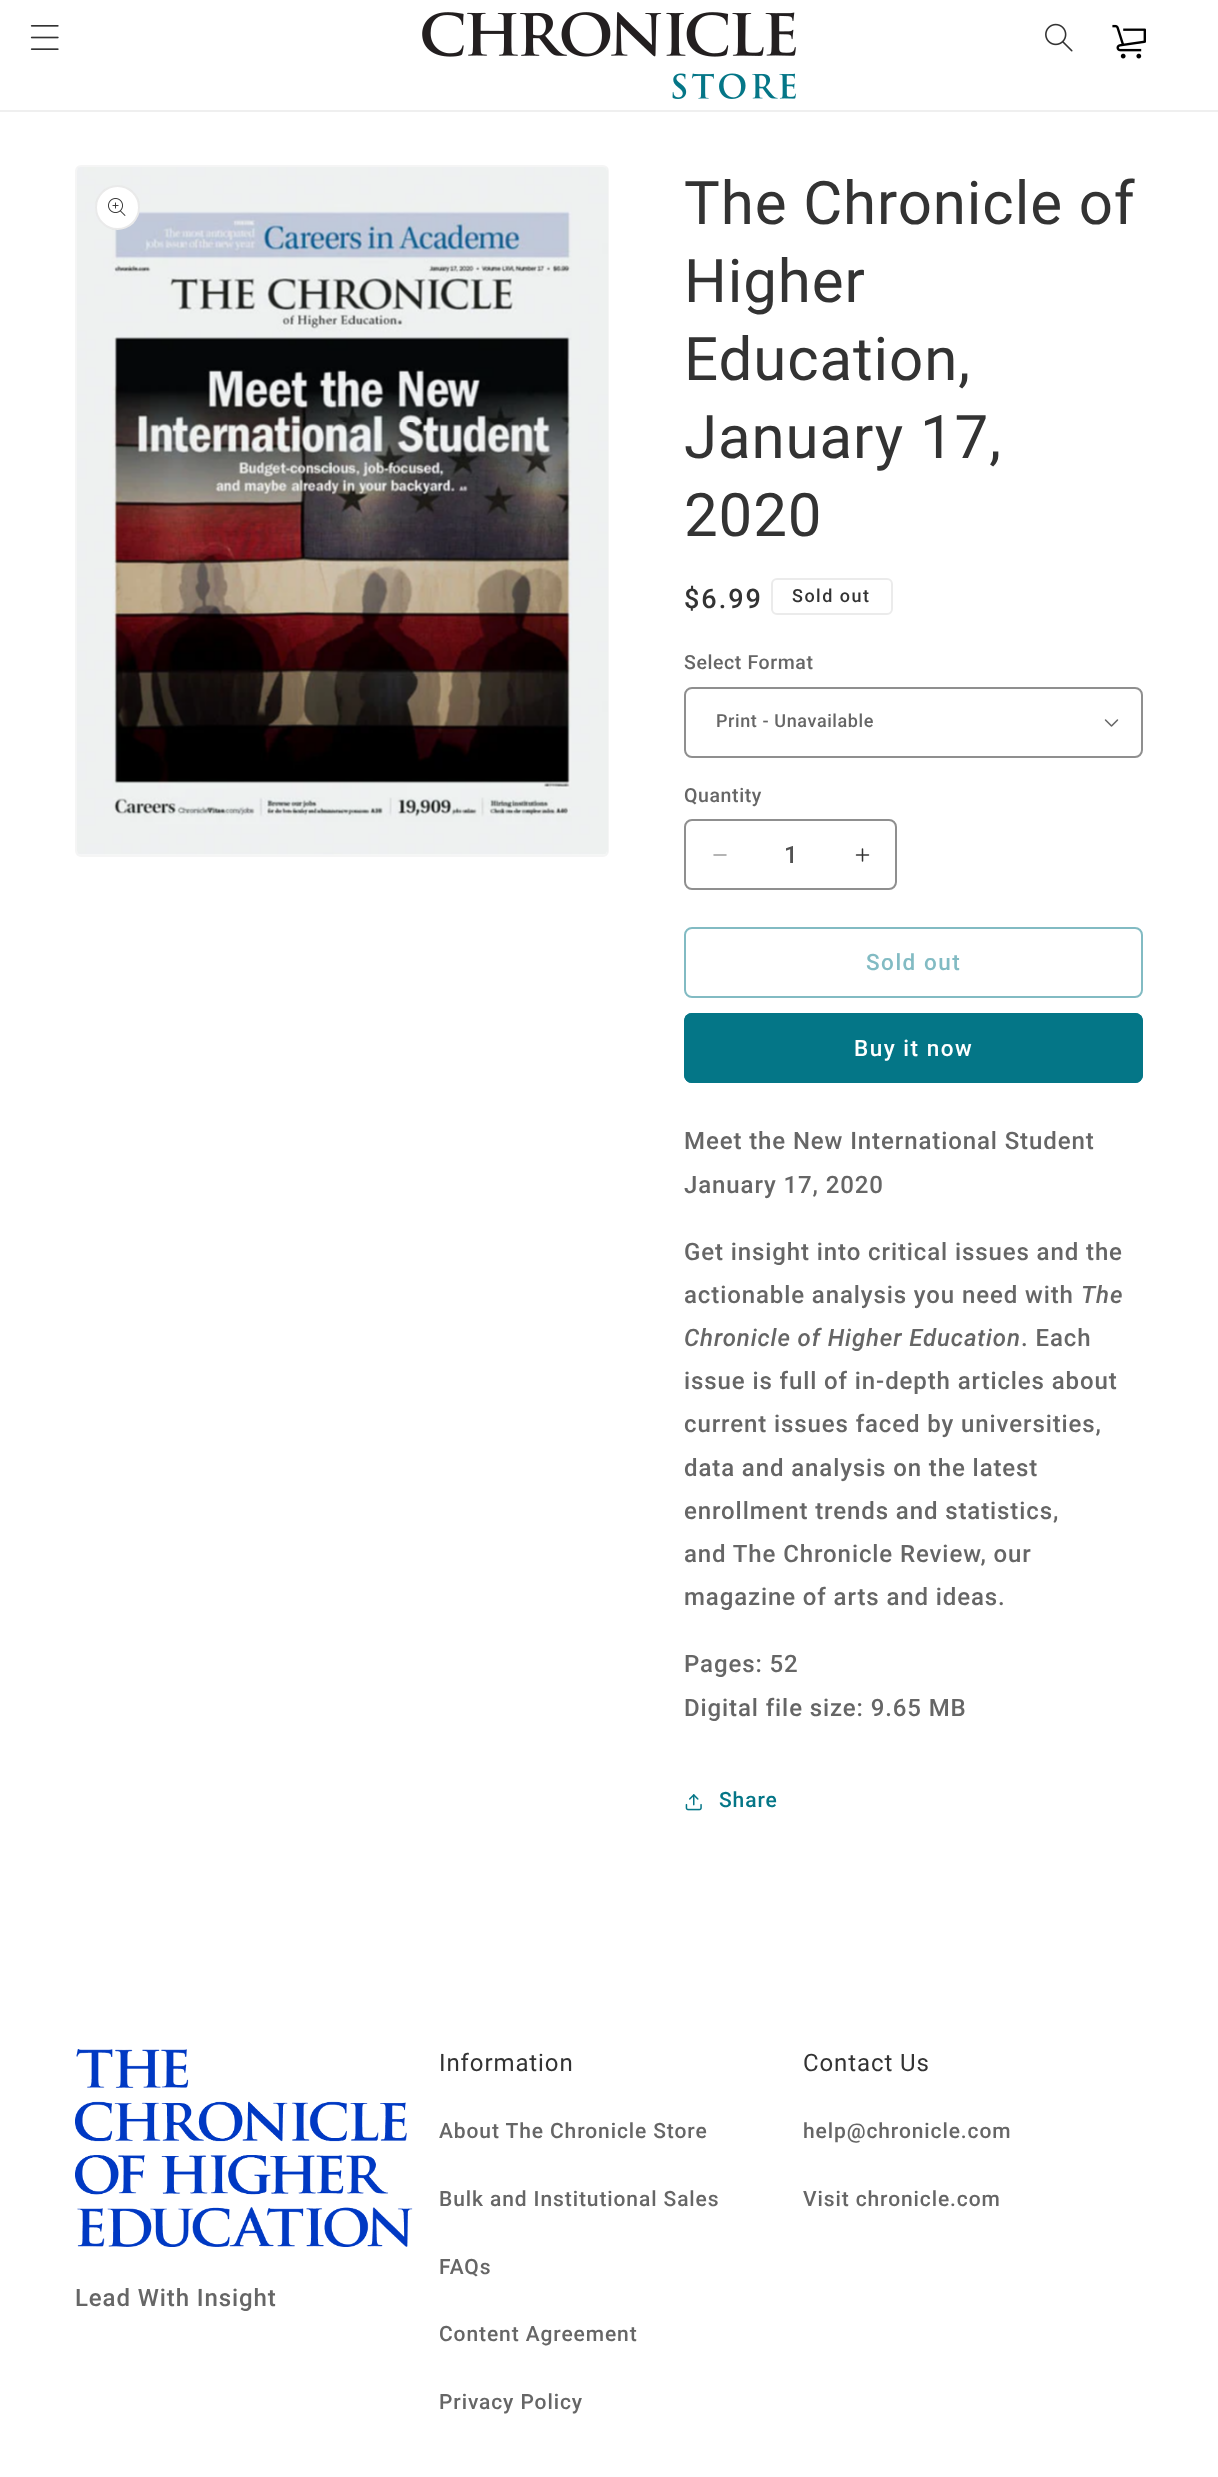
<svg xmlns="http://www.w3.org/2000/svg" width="1218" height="2477">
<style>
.a{font:60px Roboto;letter-spacing:0.9px;fill:#333}
.b{font:500 27px Roboto;letter-spacing:2px;fill:#333}
.c{font:500 18px Roboto;letter-spacing:1.5px;fill:#333}
.d{font:500 19.5px Roboto;letter-spacing:0.6px;fill:#666}
.e{font:500 18px Roboto;letter-spacing:0.6px;fill:#666}
.f{font:500 24px Roboto;fill:#525252}
.g{font:500 22.5px Roboto;letter-spacing:1.5px;fill:#82bbc3}
.h{font:500 22.5px Roboto;letter-spacing:1.5px;fill:#fff}
.i{font:500 24px Roboto;letter-spacing:0.9px;fill:#666}
.j{font:italic 500 24px Roboto;letter-spacing:0.9px;fill:#666}
.k{font:500 21px Roboto;letter-spacing:0.9px;fill:#047687}
.l{font:24px Roboto;letter-spacing:0.9px;fill:#333}
.m{font:500 21px Roboto;letter-spacing:0.9px;fill:#666}
</style>
<rect width="100%" height="100%" fill="#fff"/>
<path fill="#efefef" d="M0 110h1218v2H0z"/>
<image href="1.png" x="30" y="25" width="29" height="25"/>
<image href="2.png" x="422" y="12" width="374" height="87"/>
<image href="3.png" x="1045" y="23" width="28" height="29"/>
<image href="4.png" x="1112" y="24" width="34" height="35"/>
<rect fill="none" stroke="#f5f5f5" stroke-width="2" x="76" y="166" width="532" height="690" rx="5"/>
<image href="5.png" x="77" y="167" width="531" height="688"/>
<circle fill="#fff" cx="117.5" cy="207.5" r="22.5"/>
<circle fill="none" stroke="#3333331a" stroke-width="2" cx="117.5" cy="207.5" r="21.5"/>
<image href="6.png" x="108" y="198" width="18" height="18"/>
<rect fill="none" stroke="#ebebeb" stroke-width="2" x="772" y="579" width="120" height="35" rx="5"/>
<image href="7.png" x="1104" y="719" width="15" height="8"/>
<rect fill="none" stroke="#8f8f8f" stroke-width="2" x="685" y="688" width="457" height="69" rx="7"/>
<image href="8.png" x="713" y="854" width="14" height="2"/>
<image href="9.png" x="855" y="848" width="15" height="14"/>
<rect fill="none" stroke="#8f8f8f" stroke-width="2" x="685" y="820" width="211" height="69" rx="7"/>
<rect fill="none" stroke="#82bbc3" stroke-width="2" x="685" y="928" width="457" height="69" rx="7"/>
<rect fill="#047687" x="684" y="1013" width="459" height="70" rx="8"/>
<rect fill="none" stroke="#047687" stroke-width="2" x="685" y="1014" width="457" height="68" rx="7"/>
<image href="10.png" x="685" y="1794" width="17" height="17"/>
<image href="11.png" x="75" y="2049" width="338" height="198"/>
<text class="a" x="684" y="224">The Chronicle of</text>
<text class="a" x="684" y="302">Higher</text>
<text class="a" x="684" y="380">Education,</text>
<text class="a" x="684" y="458">January 17,</text>
<text class="a" x="684" y="536">2020</text>
<text class="b" x="684" y="608">$6.99</text>
<text class="c" x="792" y="602">Sold out</text>
<text class="d" x="684" y="669">Select Format</text>
<text class="e" x="716" y="727">Print - Unavailable</text>
<text class="d" x="684" y="802">Quantity</text>
<text class="f" x="784" y="863">1</text>
<text class="g" x="866" y="970">Sold out</text>
<text class="h" x="854" y="1056">Buy it now</text>
<text class="i" x="684" y="1149">Meet the New International Student</text>
<text class="i" x="684" y="1193">January 17, 2020</text>
<text class="i" x="684" y="1260">Get insight into critical issues and the</text>
<text class="i" x="684" y="1303">actionable analysis you need with</text>
<text class="j" x="1081" y="1303">The</text>
<text class="j" x="684" y="1346">Chronicle of Higher Education</text>
<text class="i" x="1021" y="1346">. Each</text>
<text class="i" x="684" y="1389">issue is full of in-depth articles about</text>
<text class="i" x="684" y="1432">current issues faced by universities,</text>
<text class="i" x="684" y="1476">data and analysis on the latest</text>
<text class="i" x="684" y="1519">enrollment trends and statistics,</text>
<text class="i" x="684" y="1562">and The Chronicle Review, our</text>
<text class="i" x="684" y="1605">magazine of arts and ideas.</text>
<text class="i" x="684" y="1672">Pages: 52</text>
<text class="i" x="684" y="1716">Digital file size: 9.65 MB</text>
<text class="k" x="719" y="1807">Share</text>
<text class="l" x="439" y="2071">Information</text>
<text class="m" x="439" y="2138">About The Chronicle Store</text>
<text class="m" x="439" y="2206">Bulk and Institutional Sales</text>
<text class="m" x="439" y="2274">FAQs</text>
<text class="m" x="439" y="2341">Content Agreement</text>
<text class="m" x="439" y="2409">Privacy Policy</text>
<text class="l" x="803" y="2071">Contact Us</text>
<text class="m" x="803" y="2138">help@chronicle.com</text>
<text class="m" x="803" y="2206">Visit chronicle.com</text>
<text class="i" x="75" y="2306">Lead With Insight</text>
</svg>
